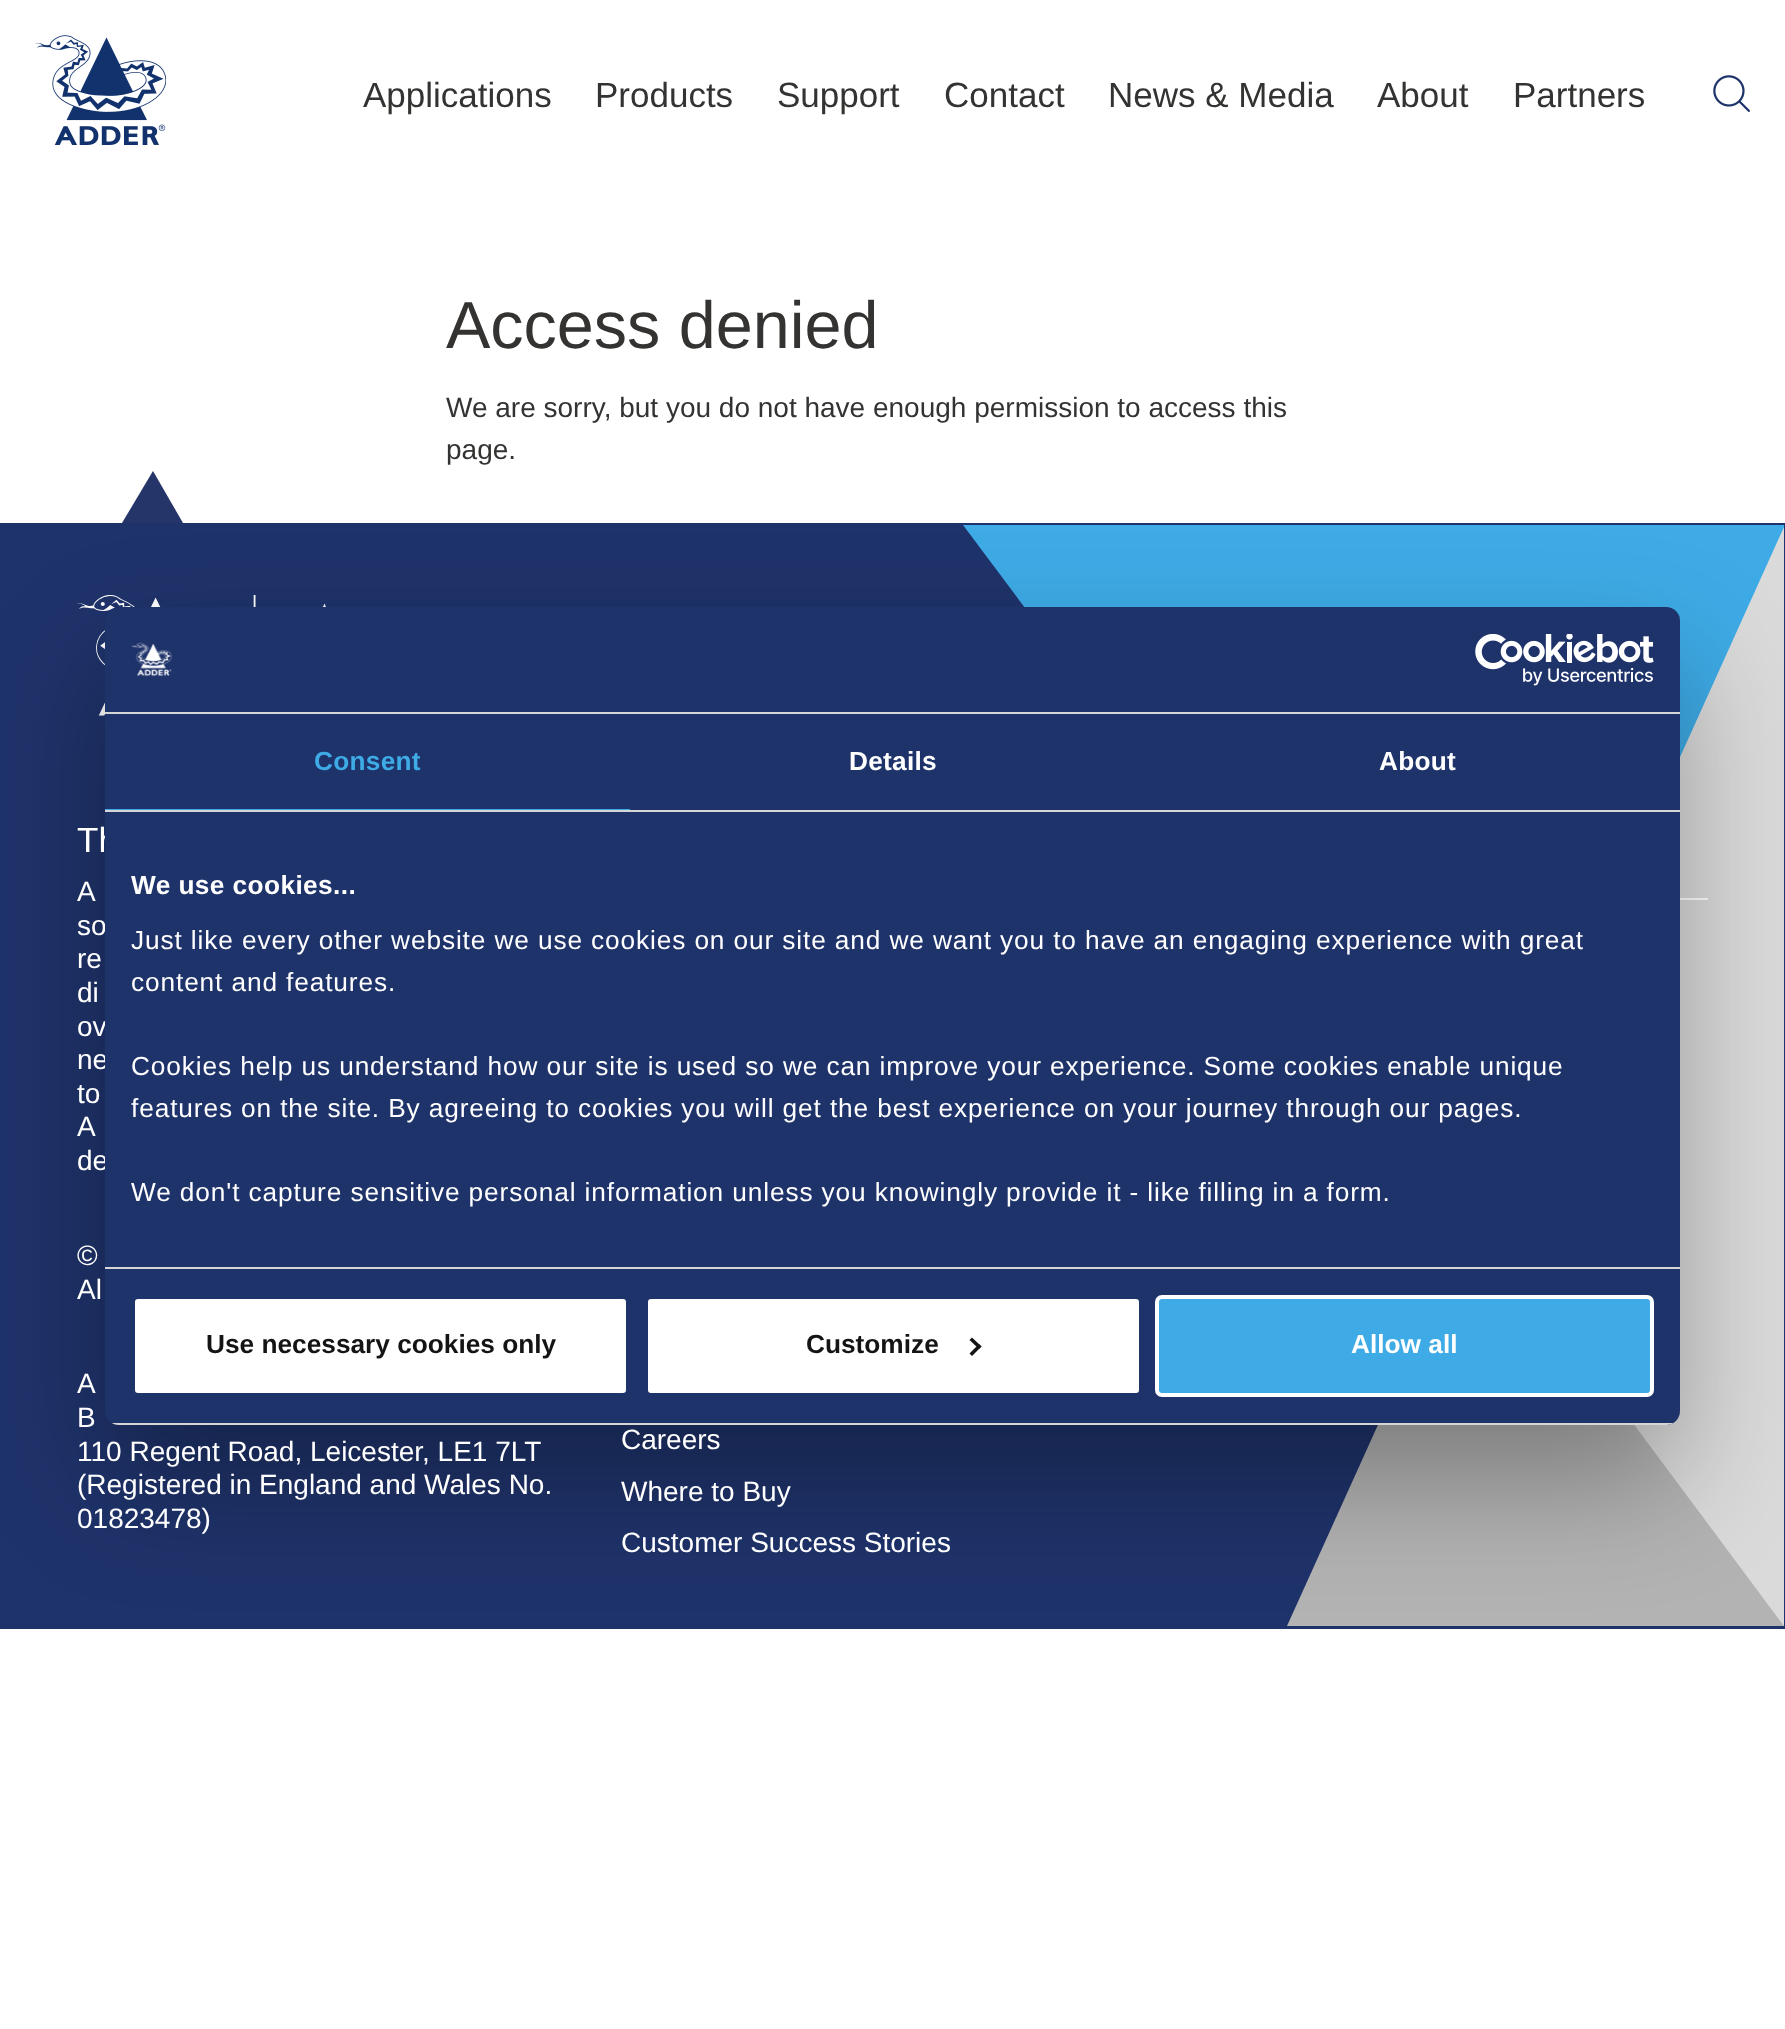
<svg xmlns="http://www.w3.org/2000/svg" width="1785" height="2029">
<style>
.a{font:35px Liberation Sans;fill:#343332}
.b{font:66.5px Liberation Sans;fill:#343332}
.c{font:28px Liberation Sans;fill:#343332}
.d{font:35px Liberation Sans;fill:#fff}
.e{font:28px Liberation Sans;fill:#fff}
.f{font:bold 26.25px Liberation Sans;letter-spacing:0.25px;fill:#3eabe6}
.g{font:bold 26.25px Liberation Sans;letter-spacing:0.25px;fill:#fff}
.h{font:bold 26.25px Liberation Sans;letter-spacing:0.4px;fill:#fff}
.i{font:26.25px Liberation Sans;letter-spacing:0.88px;fill:#fff}
.j{font:bold 26.25px Liberation Sans;fill:#141414}
.k{font:bold 26.25px Liberation Sans;fill:#fff}
</style>
<defs>
<clipPath id="clip1"><rect x="105" y="607" width="1575" height="818" rx="14"/></clipPath>
</defs>
<rect width="100%" height="100%" fill="#fff"/>
<image href="1.png" x="35" y="35" width="131" height="110"/>
<image href="2.png" x="1713" y="75" width="37" height="37"/>
<path fill="#263569" d="M153 523h-31l31-52l30 52z"/>
<path fill="#1f336b" d="M0 523h1785v1106H0z"/>
<path fill="#b4b3b3" d="M1784 527l-497 1099h497z"/>
<path fill="#3eabe6" d="M1784 1624l-821-1099h821z"/>
<path fill="#dbdada" d="M1475 1211l309 415v-1099z"/>
<image href="3.png" x="77" y="595" width="249" height="121"/>
<path fill="#fff" d="M1680 898h28v2H1680z"/>
<rect fill="#0000004d" filter="blur(59.5px)" x="105" y="663" width="1575" height="818" rx="14"/>
<text class="a" x="363" y="107">Applications</text>
<text class="a" x="595" y="107">Products</text>
<text class="a" x="777" y="107">Support</text>
<text class="a" x="944" y="107">Contact</text>
<text class="a" x="1108" y="107">News &amp; Media</text>
<text class="a" x="1377" y="107">About</text>
<text class="a" x="1513" y="107">Partners</text>
<text class="b" x="446" y="348">Access denied</text>
<text class="c" x="446" y="417">We are sorry, but you do not have enough permission to access this</text>
<text class="c" x="446" y="459">page.</text>
<text class="d" x="77" y="852">Th</text>
<text class="e" x="77" y="901">A</text>
<text class="e" x="77" y="935">so</text>
<text class="e" x="77" y="968">re</text>
<text class="e" x="77" y="1002">di</text>
<text class="e" x="77" y="1036">ov</text>
<text class="e" x="77" y="1069">ne</text>
<text class="e" x="77" y="1103">to</text>
<text class="e" x="77" y="1136">A</text>
<text class="e" x="77" y="1170">de</text>
<text class="e" x="77" y="1265">©</text>
<text class="e" x="77" y="1299">Al</text>
<text class="e" x="77" y="1393">A</text>
<text class="e" x="77" y="1427">B</text>
<text class="e" x="77" y="1461">110 Regent Road, Leicester, LE1 7LT</text>
<text class="e" x="77" y="1494">(Registered in England and Wales No.</text>
<text class="e" x="77" y="1528">01823478)</text>
<text class="e" x="621" y="1449">Careers</text>
<text class="e" x="621" y="1501">Where to Buy</text>
<text class="e" x="621" y="1552">Customer Success Stories</text>
<rect fill="#1f336b" x="105" y="607" width="1575" height="818" rx="14"/>
<path fill="#d6d6d6" d="M105 712h1575v2H105z"/>
<image href="4.png" x="131" y="642" width="41" height="35"/>
<image href="5.png" x="1475" y="634" width="179" height="52"/>
<path fill="#d6d6d6" d="M105 810h1575v2H105z"/>
<path fill="#3eabe6" d="M105 809h525v1H105z"/>
<text class="f" x="314" y="770">Consent</text>
<text class="g" x="849" y="770">Details</text>
<text class="g" x="1379" y="770">About</text>
<path fill="#d6d6d6" d="M105 1267h1575v2H105z"/>
<text class="h" x="131" y="894">We use cookies...</text>
<text class="i" x="131" y="949">Just like every other website we use cookies on our site and we want you to have an engaging experience with great</text>
<text class="i" x="131" y="991">content and features.</text>
<text class="i" x="131" y="1075">Cookies help us understand how our site is used so we can improve your experience. Some cookies enable unique</text>
<text class="i" x="131" y="1117">features on the site. By agreeing to cookies you will get the best experience on your journey through our pages.</text>
<text class="i" x="131" y="1201">We don't capture sensitive personal information unless you knowingly provide it - like filling in a form.</text>
<g clip-path="url(#clip1)">
<path fill="#d6d6d6" d="M105 1423h1575v2H105z"/>
</g>
<rect fill="#fff" stroke="#1f336b" stroke-width="4" x="133" y="1297" width="495" height="98" rx="5"/>
<text class="j" x="206" y="1353">Use necessary cookies only</text>
<rect fill="#fff" stroke="#1f336b" stroke-width="4" x="646" y="1297" width="495" height="98" rx="5"/>
<text class="j" x="806" y="1353">Customize</text>
<path fill="#141414" d="M972 1337.5l9.5 9l-2.5 2.5l-9.5-9z"/>
<path fill="#141414" d="M979 1344l2.5 2.5l-9.5 9.5l-2.5-2.5z"/>
<rect fill="#3eabe6" stroke="#fff" stroke-width="4" x="1157" y="1297" width="495" height="98" rx="5"/>
<text class="k" x="1351" y="1353">Allow all</text>
</svg>
